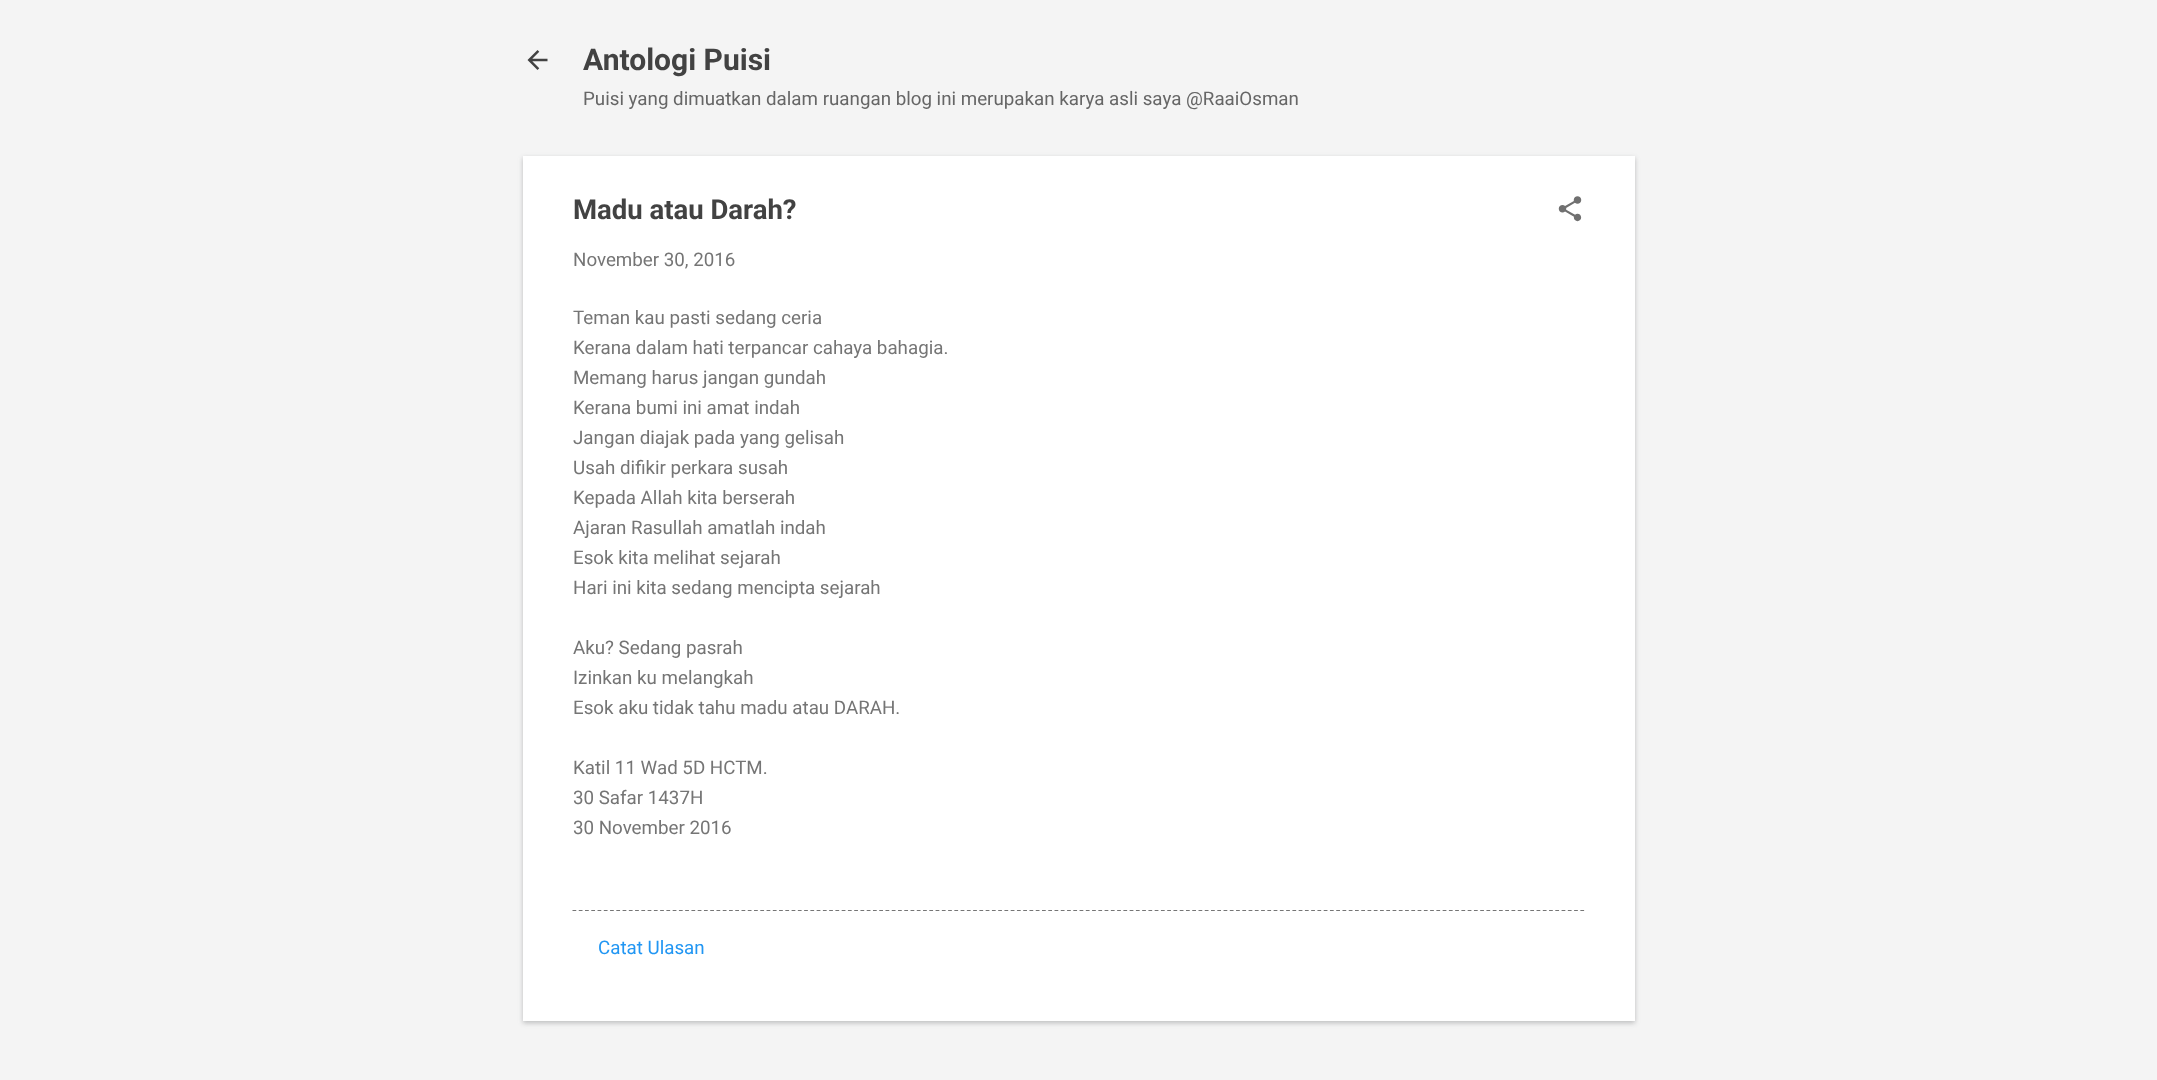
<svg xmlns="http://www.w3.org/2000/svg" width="2157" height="1080">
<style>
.a{font:bold 30px Roboto;fill:#424242}
.b{font:18.75px Roboto;fill:#666}
.c{font:bold 27.5px Roboto;fill:#424242}
.d{font:18.75px Roboto;fill:#757575}
.e{font:18.75px Roboto;fill:#2196f3}
</style>
<rect width="100%" height="100%" fill="#f4f4f4"/>
<image href="1.png" x="527" y="50" width="21" height="20"/>
<path fill="#3c40434d" filter="blur(2.5px)" d="M523 158h1112v865H523z"/>
<path fill="#fff" d="M523 156h1112v865H523z"/>
<image href="2.png" x="1558" y="196" width="24" height="26"/>
<path fill="none" stroke="#757575" stroke-width="1.2" stroke-dasharray="3.75 2.51" d="M572.5 910.5h1012.5"/>
<text class="a" x="583" y="70">Antologi Puisi</text>
<text class="b" x="583" y="105">Puisi yang dimuatkan dalam ruangan blog ini merupakan karya asli saya @RaaiOsman</text>
<text class="c" x="573" y="219">Madu atau Darah?</text>
<text class="d" x="573" y="266">November 30, 2016</text>
<text class="d" x="573" y="324">Teman kau pasti sedang ceria</text>
<text class="d" x="573" y="354">Kerana dalam hati terpancar cahaya bahagia.</text>
<text class="d" x="573" y="384">Memang harus jangan gundah</text>
<text class="d" x="573" y="414">Kerana bumi ini amat indah</text>
<text class="d" x="573" y="444">Jangan diajak pada yang gelisah</text>
<text class="d" x="573" y="474">Usah difikir perkara susah</text>
<text class="d" x="573" y="504">Kepada Allah kita berserah</text>
<text class="d" x="573" y="534">Ajaran Rasullah amatlah indah</text>
<text class="d" x="573" y="564">Esok kita melihat sejarah</text>
<text class="d" x="573" y="594">Hari ini kita sedang mencipta sejarah</text>
<text class="d" x="573" y="654">Aku? Sedang pasrah</text>
<text class="d" x="573" y="684">Izinkan ku melangkah</text>
<text class="d" x="573" y="714">Esok aku tidak tahu madu atau DARAH.</text>
<text class="d" x="573" y="774">Katil 11 Wad 5D HCTM.</text>
<text class="d" x="573" y="804">30 Safar 1437H</text>
<text class="d" x="573" y="834">30 November 2016</text>
<text class="e" x="598" y="954">Catat Ulasan</text>
</svg>
